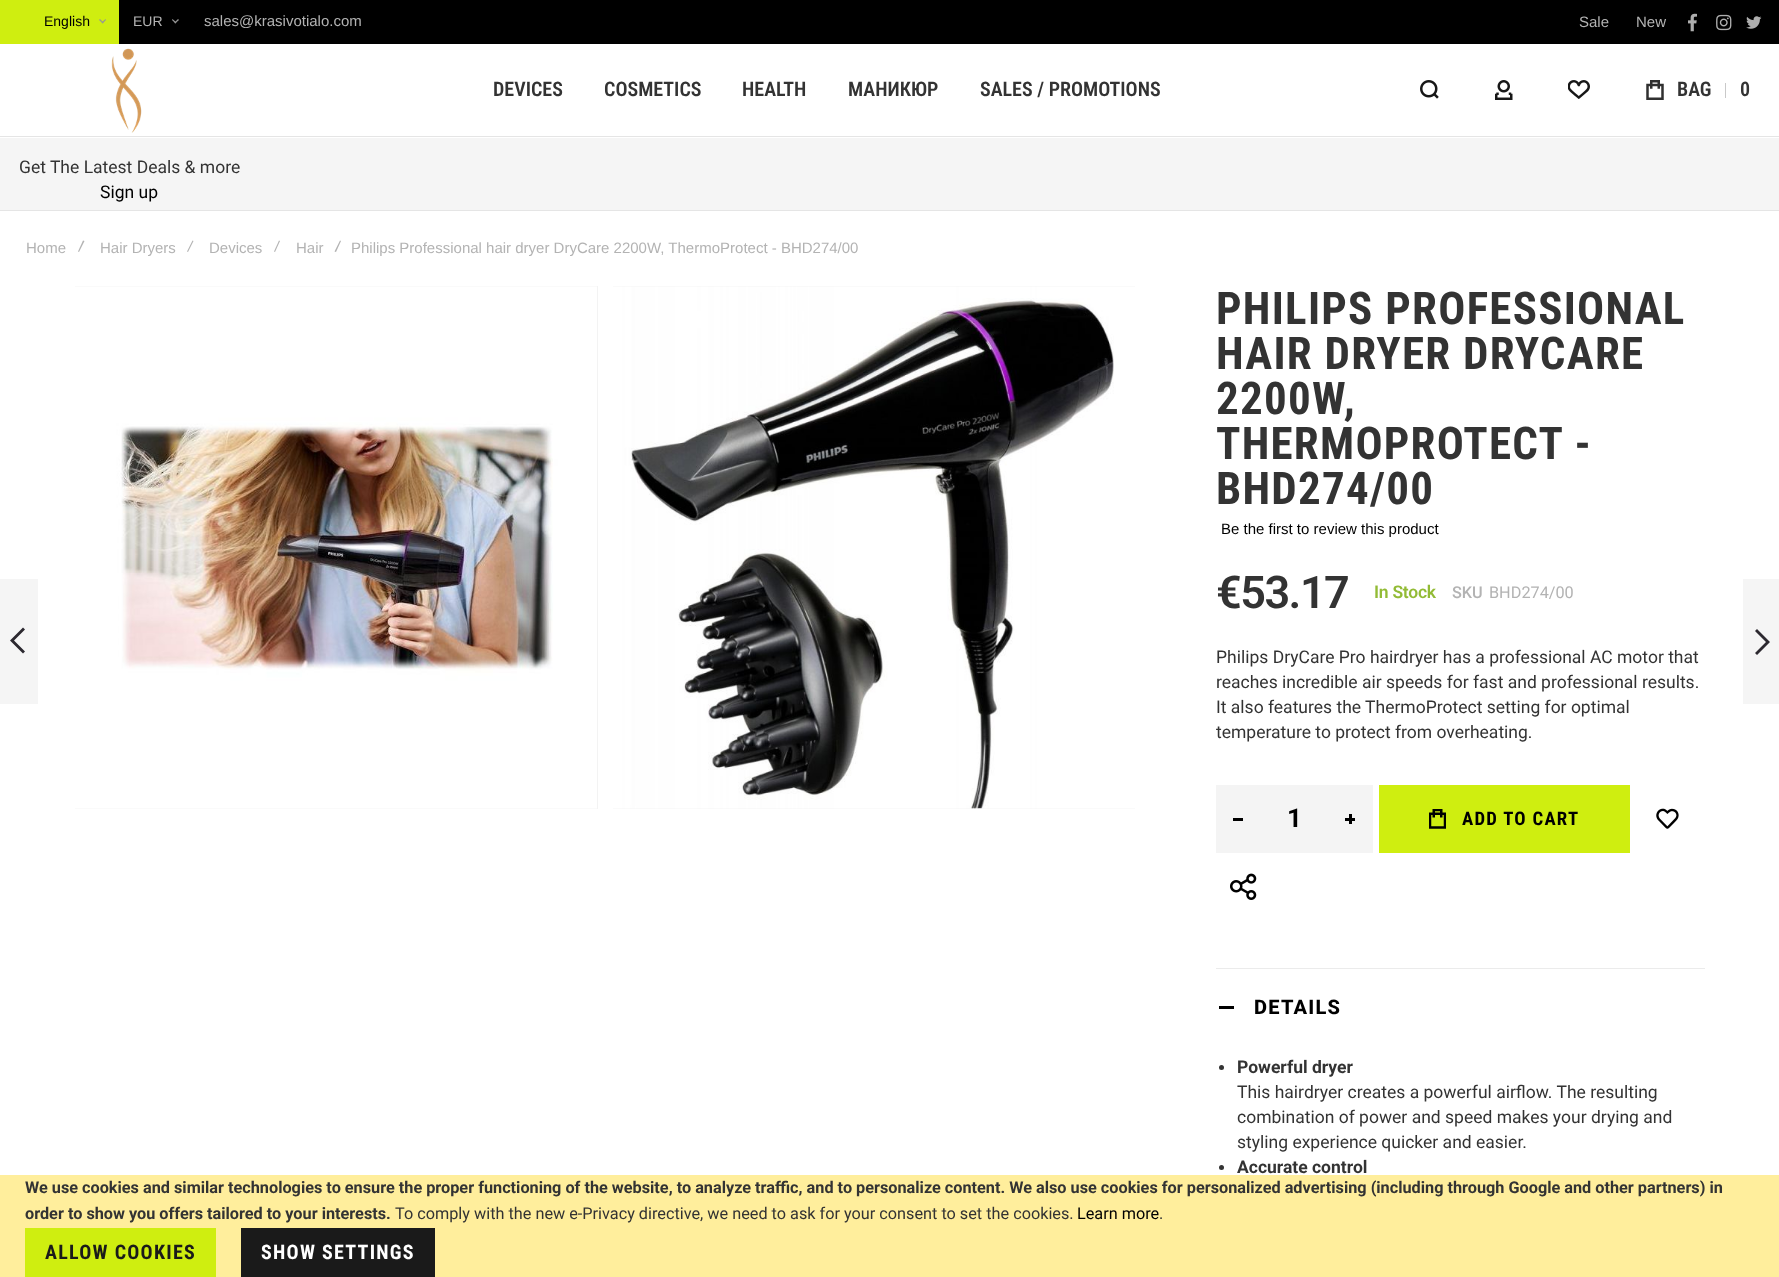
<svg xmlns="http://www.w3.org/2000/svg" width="1779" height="1277">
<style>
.a{font:14px Liberation Sans;fill:#000}
.b{font:14px Liberation Sans;fill:#b3b3b3}
.c{font:15px Liberation Sans;fill:#b3b3b3}
.d{font:600 20px Roboto Condensed;fill:#333}
.e{font:17.5px Roboto;fill:#333}
.f{font:17.5px Roboto;fill:#000}
.g{font:bold 45px Roboto Condensed;letter-spacing:1.25px;fill:#333}
.h{font:15px Liberation Sans;fill:#000}
.i{font:600 45px Roboto;letter-spacing:-1.5px;fill:#333}
.j{font:600 17.5px Roboto;letter-spacing:-0.25px;fill:#92bb35}
.k{font:500 16.25px Roboto;fill:#b3b3b3}
.l{font:16.25px Roboto;fill:#b3b3b3}
.m{font:bold 26px Roboto;fill:#000}
.n{font:bold 18.75px Roboto Condensed;letter-spacing:1.25px;fill:#000}
.o{font:800 20px Roboto;letter-spacing:1.25px;fill:#000}
.p{font:bold 17.5px Roboto;fill:#333}
.q{font:bold 16.25px Roboto;fill:#333}
.r{font:16.25px Roboto;fill:#333}
.s{font:16.25px Roboto;fill:#000}
.t{font:bold 20px Roboto Condensed;letter-spacing:1.25px;fill:#1a1a1a}
.u{font:bold 20px Roboto Condensed;letter-spacing:1.25px;fill:#fff}
</style>
<rect width="100%" height="100%" fill="#fff"/>
<path fill="#e5e5e5" d="M0 136h1779v1H0z"/>
<path fill="#000" d="M119 0h1660v44H119z"/>
<path fill="#cfee10" d="M0 0h119v44H0z"/>
<path fill="#969696" d="M100 19l3.5 3.5l-.5 1l-4-3.5z"/>
<path fill="#969696" d="M101.5 22.5l4-3.5l.5 1l-3.5 3.5z"/>
<path fill="#969696" d="M172.5 19l4 3.5l-1 1l-3.5-3.5z"/>
<path fill="#969696" d="M174.5 22.5l3.5-3.5l1 1l-4 3.5z"/>
<image href="1.png" x="1688" y="13" width="9" height="19"/>
<image href="2.png" x="1716" y="14" width="16" height="17"/>
<image href="3.png" x="1746" y="16" width="16" height="13"/>
<image href="4.png" x="111" y="48" width="31" height="85"/>
<image href="5.png" x="1420" y="80" width="19" height="19"/>
<image href="6.png" x="1495" y="80" width="18" height="20"/>
<image href="7.png" x="1568" y="80" width="22" height="19"/>
<image href="8.png" x="1646" y="80" width="18" height="20"/>
<path fill="#c9c9c9" d="M1725 83h1v15H1725z"/>
<path fill="#f5f5f5" d="M0 138h1779v72H0z"/>
<path fill="#e5e5e5" d="M0 210h1779v1H0z"/>
<path fill="#b3b3b3" d="M83 240.5l1.5 .5l-5.5 11l-1-.5z"/>
<path fill="#b3b3b3" d="M192.5 240.5l1 .5l-5.5 11l-1-.5z"/>
<path fill="#b3b3b3" d="M279 240.5l1 .5l-5 11l-1-.5z"/>
<path fill="#b3b3b3" d="M340 240.5l1 .5l-5 11l-1.5-.5z"/>
<path fill="#f5f5f5" d="M0 579h38v125H0z"/>
<path fill="#2c2930" d="M10 640.5l13 13l2-2l-11-11l11-11l-2-2z"/>
<path fill="#f3f3f3" d="M75 286h523v523H75z"/>
<image href="9.png" x="75" y="286" width="522" height="523"/>
<path fill="#f3f3f3" d="M613 286h522v523H613z"/>
<image href="10.png" x="613" y="286" width="522" height="523"/>
<path fill="#f4f4f4" d="M1216 785h157v68H1216z"/>
<path fill="#000" d="M1233 818h10v3H1233z"/>
<path fill="#000" d="M1345 818h10v3H1345z"/>
<path fill="#000" d="M1349 814h3v10H1349z"/>
<path fill="#cfee10" d="M1379 785h251v68H1379z"/>
<image href="11.png" x="1429" y="809" width="17" height="20"/>
<image href="12.png" x="1656" y="808" width="23" height="21"/>
<image href="13.png" x="1230" y="873" width="27" height="27"/>
<path fill="#ebebeb" d="M1216 968h489v1H1216z"/>
<path fill="#000" d="M1219 1006h15v3H1219z"/>
<circle fill="#333" cx="1221.5" cy="1067.5" r="2.5"/>
<circle fill="#333" cx="1221.5" cy="1167.5" r="2.5"/>
<path fill="#f5f5f5" d="M1743 579h36v125H1743z"/>
<path fill="#2c2930" d="M1770 642l-13-13l-2 2l11 11l-11 11l2 2z"/>
<path fill="#ffee9c" d="M0 1175h1779v102H0z"/>
<path fill="#cfee10" d="M25 1228h191v49H25z"/>
<path fill="#1a1a1a" d="M241 1228h194v49H241z"/>
<text class="a" x="44" y="26">English</text>
<text class="b" x="133" y="26">EUR</text>
<text class="c" x="204" y="26">sales@krasivotialo.com</text>
<text class="c" x="1579" y="27">Sale</text>
<text class="c" x="1636" y="27">New</text>
<text class="d" x="493" y="96">DEVICES</text>
<text class="d" x="604" y="96">COSMETICS</text>
<text class="d" x="742" y="96">HEALTH</text>
<text class="d" x="848" y="96">МАНИКЮР</text>
<text class="d" x="980" y="96">SALES / PROMOTIONS</text>
<text class="d" x="1677" y="96">BAG</text>
<text class="d" x="1740" y="96">0</text>
<text class="e" x="19" y="173">Get The Latest Deals &amp; more</text>
<text class="f" x="100" y="198">Sign up</text>
<text class="c" x="26" y="253">Home</text>
<text class="c" x="100" y="253">Hair Dryers</text>
<text class="c" x="209" y="253">Devices</text>
<text class="c" x="296" y="253">Hair</text>
<text class="c" x="351" y="253">Philips Professional hair dryer DryCare 2200W, ThermoProtect - BHD274/00</text>
<text class="g" x="1216" y="324">PHILIPS PROFESSIONAL</text>
<text class="g" x="1216" y="369">HAIR DRYER DRYCARE</text>
<text class="g" x="1216" y="414">2200W,</text>
<text class="g" x="1216" y="459">THERMOPROTECT -</text>
<text class="g" x="1216" y="504">BHD274/00</text>
<text class="h" x="1221" y="534">Be the first to review this product</text>
<text class="i" x="1216" y="608">€53.17</text>
<text class="j" x="1374" y="598">In Stock</text>
<text class="k" x="1452" y="598">SKU</text>
<text class="l" x="1489" y="598">BHD274/00</text>
<text class="e" x="1216" y="663">Philips DryCare Pro hairdryer has a professional AC motor that</text>
<text class="e" x="1216" y="688">reaches incredible air speeds for fast and professional results.</text>
<text class="e" x="1216" y="713">It also features the ThermoProtect setting for optimal</text>
<text class="e" x="1216" y="738">temperature to protect from overheating.</text>
<text class="m" x="1287" y="827">1</text>
<text class="n" x="1462" y="825">ADD TO CART</text>
<text class="o" x="1254" y="1014">DETAILS</text>
<text class="p" x="1237" y="1073">Powerful dryer</text>
<text class="e" x="1237" y="1098">This hairdryer creates a powerful airflow. The resulting</text>
<text class="e" x="1237" y="1123">combination of power and speed makes your drying and</text>
<text class="e" x="1237" y="1148">styling experience quicker and easier.</text>
<text class="p" x="1237" y="1173">Accurate control</text>
<text class="q" x="25" y="1193">We use cookies and similar technologies to ensure the proper functioning of the website, to analyze traffic, and to personalize content. We also use cookies for personalized advertising (including through Google and other partners) in</text>
<text class="q" x="25" y="1219">order to show you offers tailored to your interests.</text>
<text class="r" x="395" y="1219">To comply with the new e-Privacy directive, we need to ask for your consent to set the cookies.</text>
<text class="s" x="1077" y="1219">Learn more</text>
<text class="r" x="1159" y="1219">.</text>
<text class="t" x="45" y="1259">ALLOW COOKIES</text>
<text class="u" x="261" y="1259">SHOW SETTINGS</text>
</svg>
